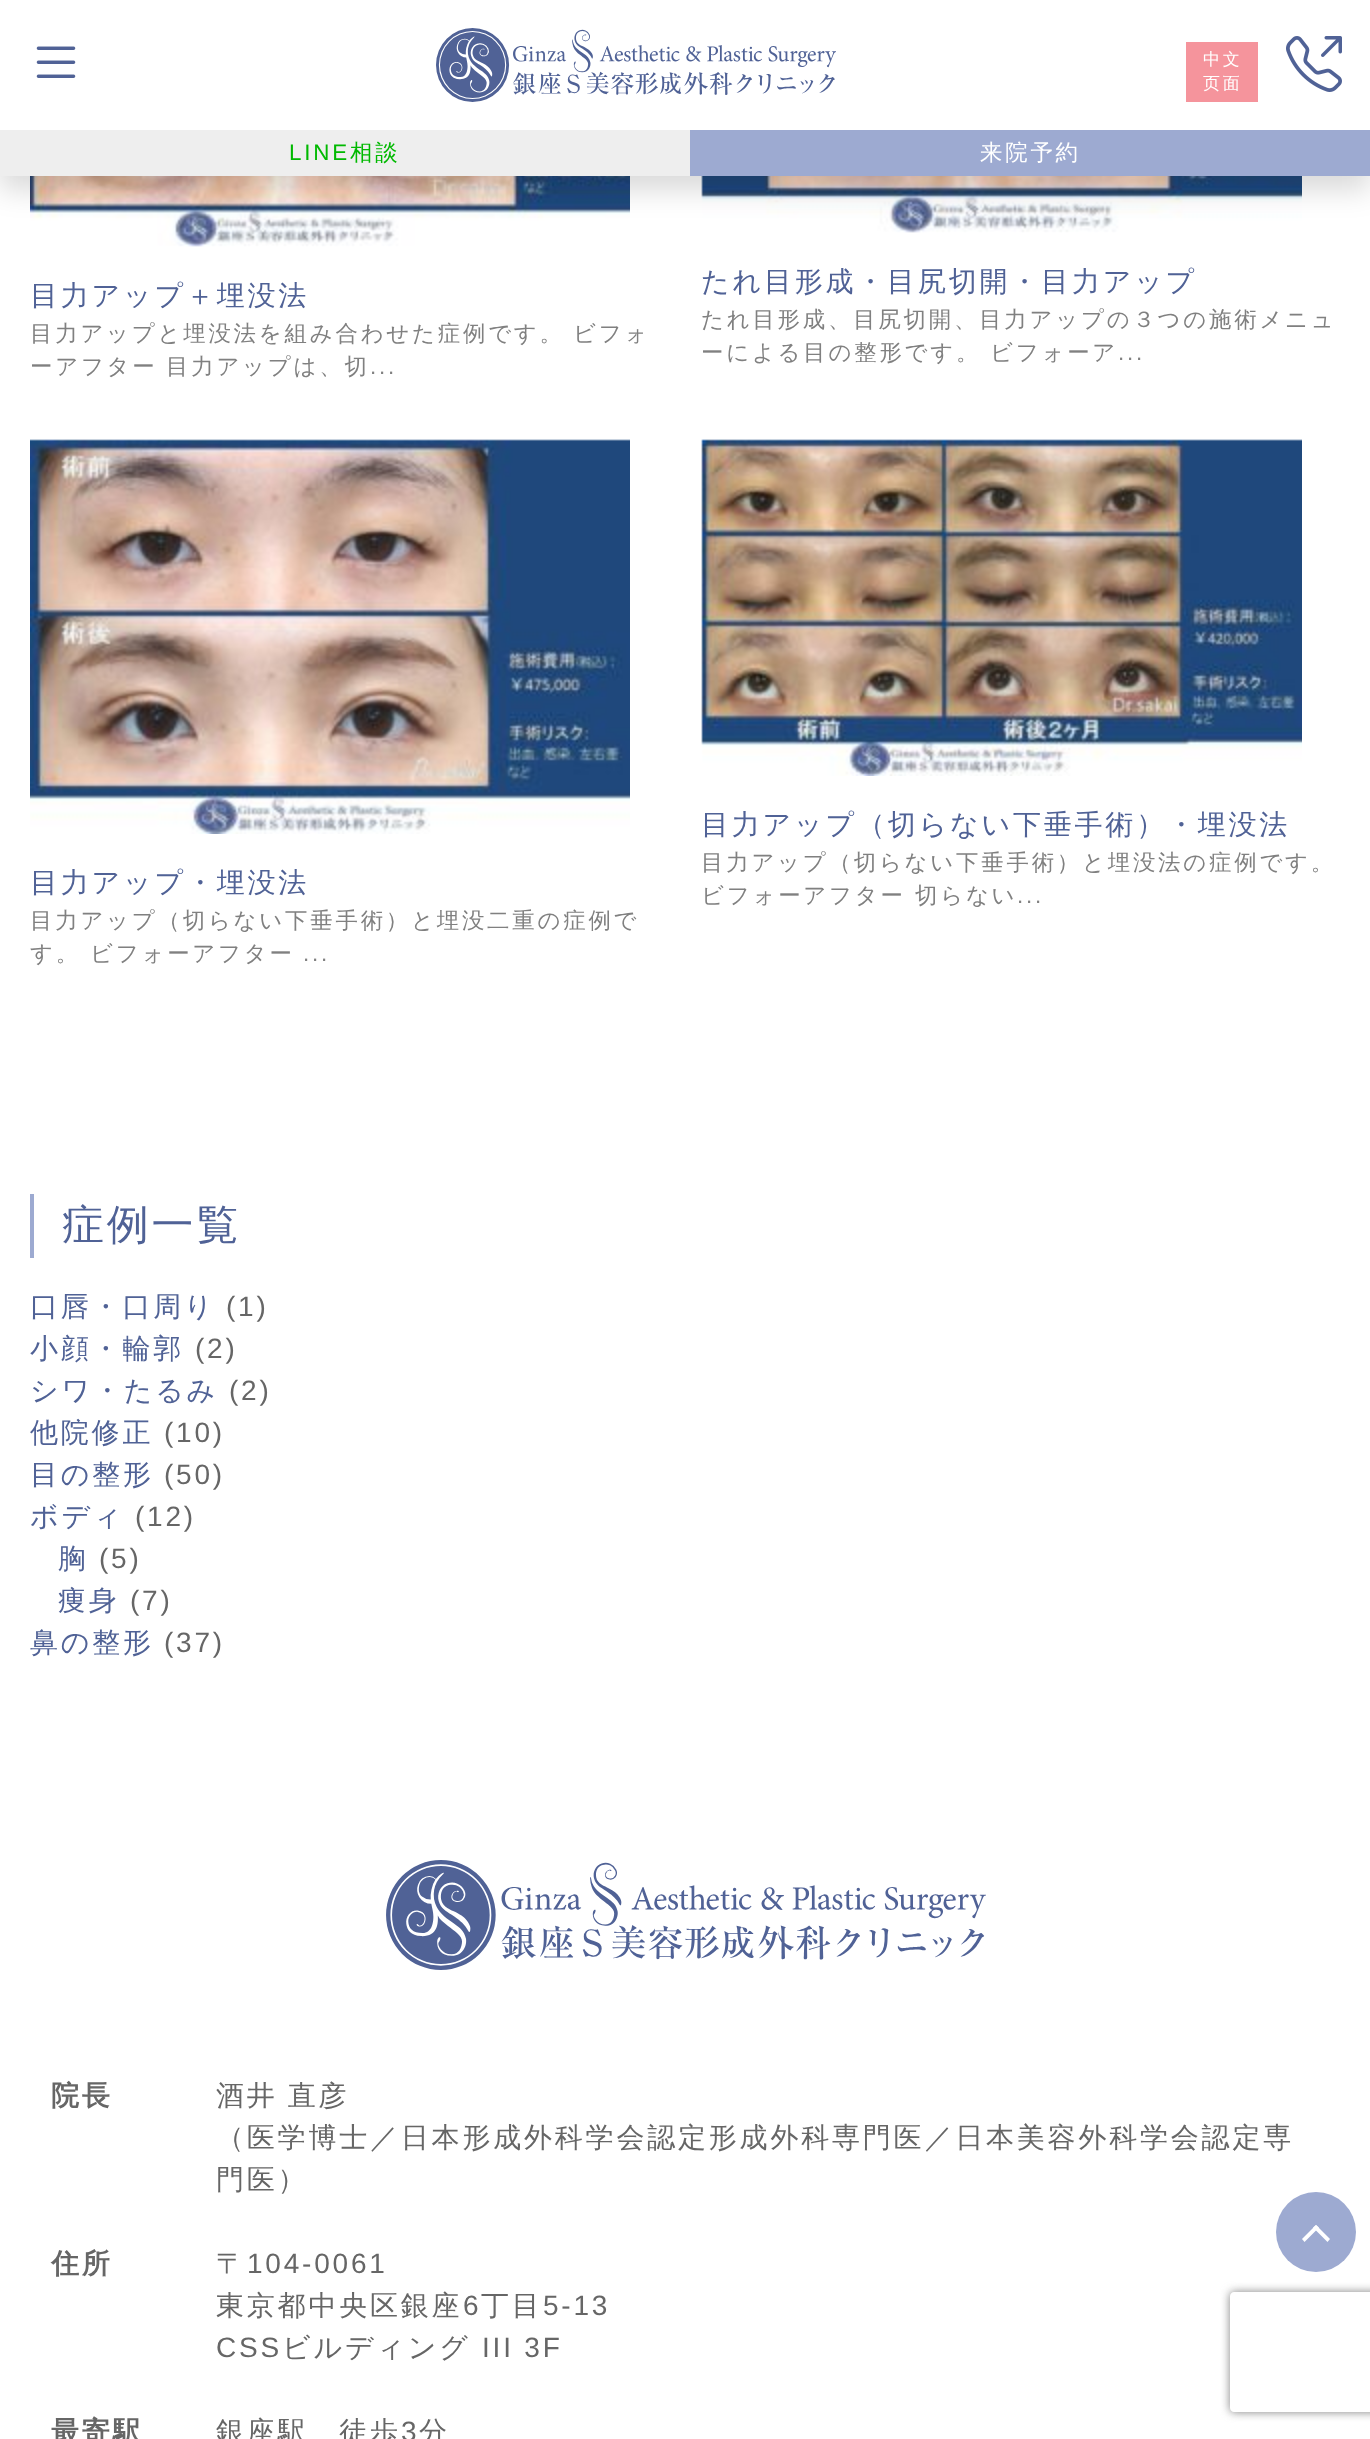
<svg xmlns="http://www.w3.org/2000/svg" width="1370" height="2439">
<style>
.a{font:500 17px WenQuanYi Zen Hei;letter-spacing:2.8px;fill:#fff}
.b{font:22.4px Liberation Sans;letter-spacing:2.8px;fill:#00b900}
.c{font:500 22.4px WenQuanYi Zen Hei;letter-spacing:2.8px;fill:#00b900}
.d{font:500 22.4px WenQuanYi Zen Hei;letter-spacing:2.8px;fill:#fff}
.e{font:500 28px WenQuanYi Zen Hei;letter-spacing:2.8px;fill:#506296}
.f{font:500 22.4px WenQuanYi Zen Hei;letter-spacing:2.8px;fill:#808080}
.g{font:22.4px Liberation Sans;letter-spacing:2.8px;fill:#808080}
.h{font:500 42px WenQuanYi Zen Hei;letter-spacing:2.8px;fill:#506296}
.i{font:28px Liberation Sans;letter-spacing:2.8px;fill:#666}
.j{font:bold 28px WenQuanYi Zen Hei;letter-spacing:2.8px;fill:#666}
.k{font:500 28px WenQuanYi Zen Hei;letter-spacing:2.8px;fill:#666}
</style>
<defs>
<clipPath id="clip1"><path d="M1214 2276h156v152h-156zm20 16h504c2 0 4 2 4 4v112c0 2-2 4-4 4h-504c-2 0-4-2-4-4v-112c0-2 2-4 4-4z" clip-rule="evenodd"/></clipPath>
</defs>
<rect width="100%" height="100%" fill="#fff"/>
<image href="4.png" x="30" y="176" width="600" height="71"/>
<image href="5.png" x="701" y="176" width="601" height="57"/>
<path fill="#00000026" filter="blur(14px)" d="M0 14h1370v176H0z"/>
<path fill="#fff" d="M0 0h1370v130H0z"/>
<image href="1.png" x="36" y="46" width="40" height="32"/>
<image href="2.png" x="436" y="28" width="400" height="74"/>
<path fill="#f5949c" d="M1186 42h72v60H1186z"/>
<image href="3.png" x="1286" y="36" width="56" height="56"/>
<path fill="#eee" d="M0 130h690v46H0z"/>
<path fill="#9daad1" d="M690 130h680v46H690z"/>
<image href="6.png" x="30" y="439" width="600" height="395"/>
<image href="7.png" x="701" y="439" width="601" height="337"/>
<path fill="#9daad1" d="M30 1194h4v64H30z"/>
<image href="8.png" x="386" y="1860" width="600" height="110"/>
<circle fill="#9daad1" cx="1316" cy="2232" r="40"/>
<path fill="#fff" d="M1302 2239l14-14l3 2.5l-14.5 14.5z"/>
<path fill="#fff" d="M1313 2227.5l3-2.5l14 14l-2.5 3z"/>
<g clip-path="url(#clip1)">
<rect fill="#808080" filter="blur(5px)" x="1230" y="2292" width="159" height="120" rx="4"/>
</g>
<text class="a" x="1203" y="65">中文</text>
<text class="a" x="1203" y="89">页面</text>
<text class="b" x="289" y="160">LINE</text>
<text class="c" x="350" y="160">相談</text>
<text class="d" x="980" y="160">来院予約</text>
<text class="e" x="30" y="305">目力アップ＋埋没法</text>
<text class="f" x="30" y="341">目力アップと埋没法を組み合わせた症例です。</text>
<text class="f" x="573" y="341">ビフォ</text>
<text class="f" x="30" y="374">ーアフター</text>
<text class="f" x="166" y="374">目力アップは、切</text>
<text class="g" x="370" y="374">...</text>
<text class="e" x="701" y="291">たれ目形成・目尻切開・目力アップ</text>
<text class="f" x="701" y="327">たれ目形成、目尻切開、目力アップの３つの施術メニュ</text>
<text class="f" x="701" y="360">ーによる目の整形です。</text>
<text class="f" x="990" y="360">ビフォーア</text>
<text class="g" x="1118" y="360">...</text>
<text class="e" x="30" y="892">目力アップ・埋没法</text>
<text class="f" x="30" y="928">目力アップ（切らない下垂手術）と埋没二重の症例で</text>
<text class="f" x="30" y="961">す。</text>
<text class="f" x="90" y="961">ビフォーアフター</text>
<text class="g" x="303" y="961">...</text>
<text class="e" x="701" y="834">目力アップ（切らない下垂手術）・埋没法</text>
<text class="f" x="701" y="870">目力アップ（切らない下垂手術）と埋没法の症例です。</text>
<text class="f" x="701" y="903">ビフォーアフター</text>
<text class="f" x="915" y="903">切らない</text>
<text class="g" x="1017" y="903">...</text>
<text class="h" x="62" y="1239">症例一覧</text>
<text class="e" x="30" y="1316">口唇・口周り</text>
<text class="i" x="226" y="1316">(1)</text>
<text class="e" x="30" y="1358">小顔・輪郭</text>
<text class="i" x="195" y="1358">(2)</text>
<text class="e" x="30" y="1400">シワ・たるみ</text>
<text class="i" x="229" y="1400">(2)</text>
<text class="e" x="30" y="1442">他院修正</text>
<text class="i" x="164" y="1442">(10)</text>
<text class="e" x="30" y="1484">目の整形</text>
<text class="i" x="164" y="1484">(50)</text>
<text class="e" x="30" y="1526">ボディ</text>
<text class="i" x="135" y="1526">(12)</text>
<text class="e" x="58" y="1568">胸</text>
<text class="i" x="99" y="1568">(5)</text>
<text class="e" x="58" y="1610">痩身</text>
<text class="i" x="130" y="1610">(7)</text>
<text class="e" x="30" y="1652">鼻の整形</text>
<text class="i" x="164" y="1652">(37)</text>
<text class="j" x="51" y="2105">院長</text>
<text class="k" x="216" y="2105" word-spacing="-1">酒井 直彦</text>
<text class="k" x="216" y="2147">（医学博士／日本形成外科学会認定形成外科専門医／日本美容外科学会認定専</text>
<text class="k" x="216" y="2189">門医）</text>
<text class="j" x="51" y="2273">住所</text>
<text class="k" x="216" y="2273">〒</text>
<text class="i" x="247" y="2273">104-0061</text>
<text class="k" x="216" y="2315">東京都中央区銀座</text>
<text class="i" x="463" y="2315">6</text>
<text class="k" x="481" y="2315">丁目</text>
<text class="i" x="543" y="2315">5-13</text>
<text class="i" x="216" y="2357">CSS</text>
<text class="k" x="282" y="2357">ビルディング</text>
<text class="i" x="482" y="2357">III 3F</text>
<text class="j" x="51" y="2441">最寄駅</text>
<text class="k" x="216" y="2441">銀座駅　徒歩</text>
<text class="i" x="401" y="2441">3</text>
<text class="k" x="419" y="2441">分</text>
</svg>
